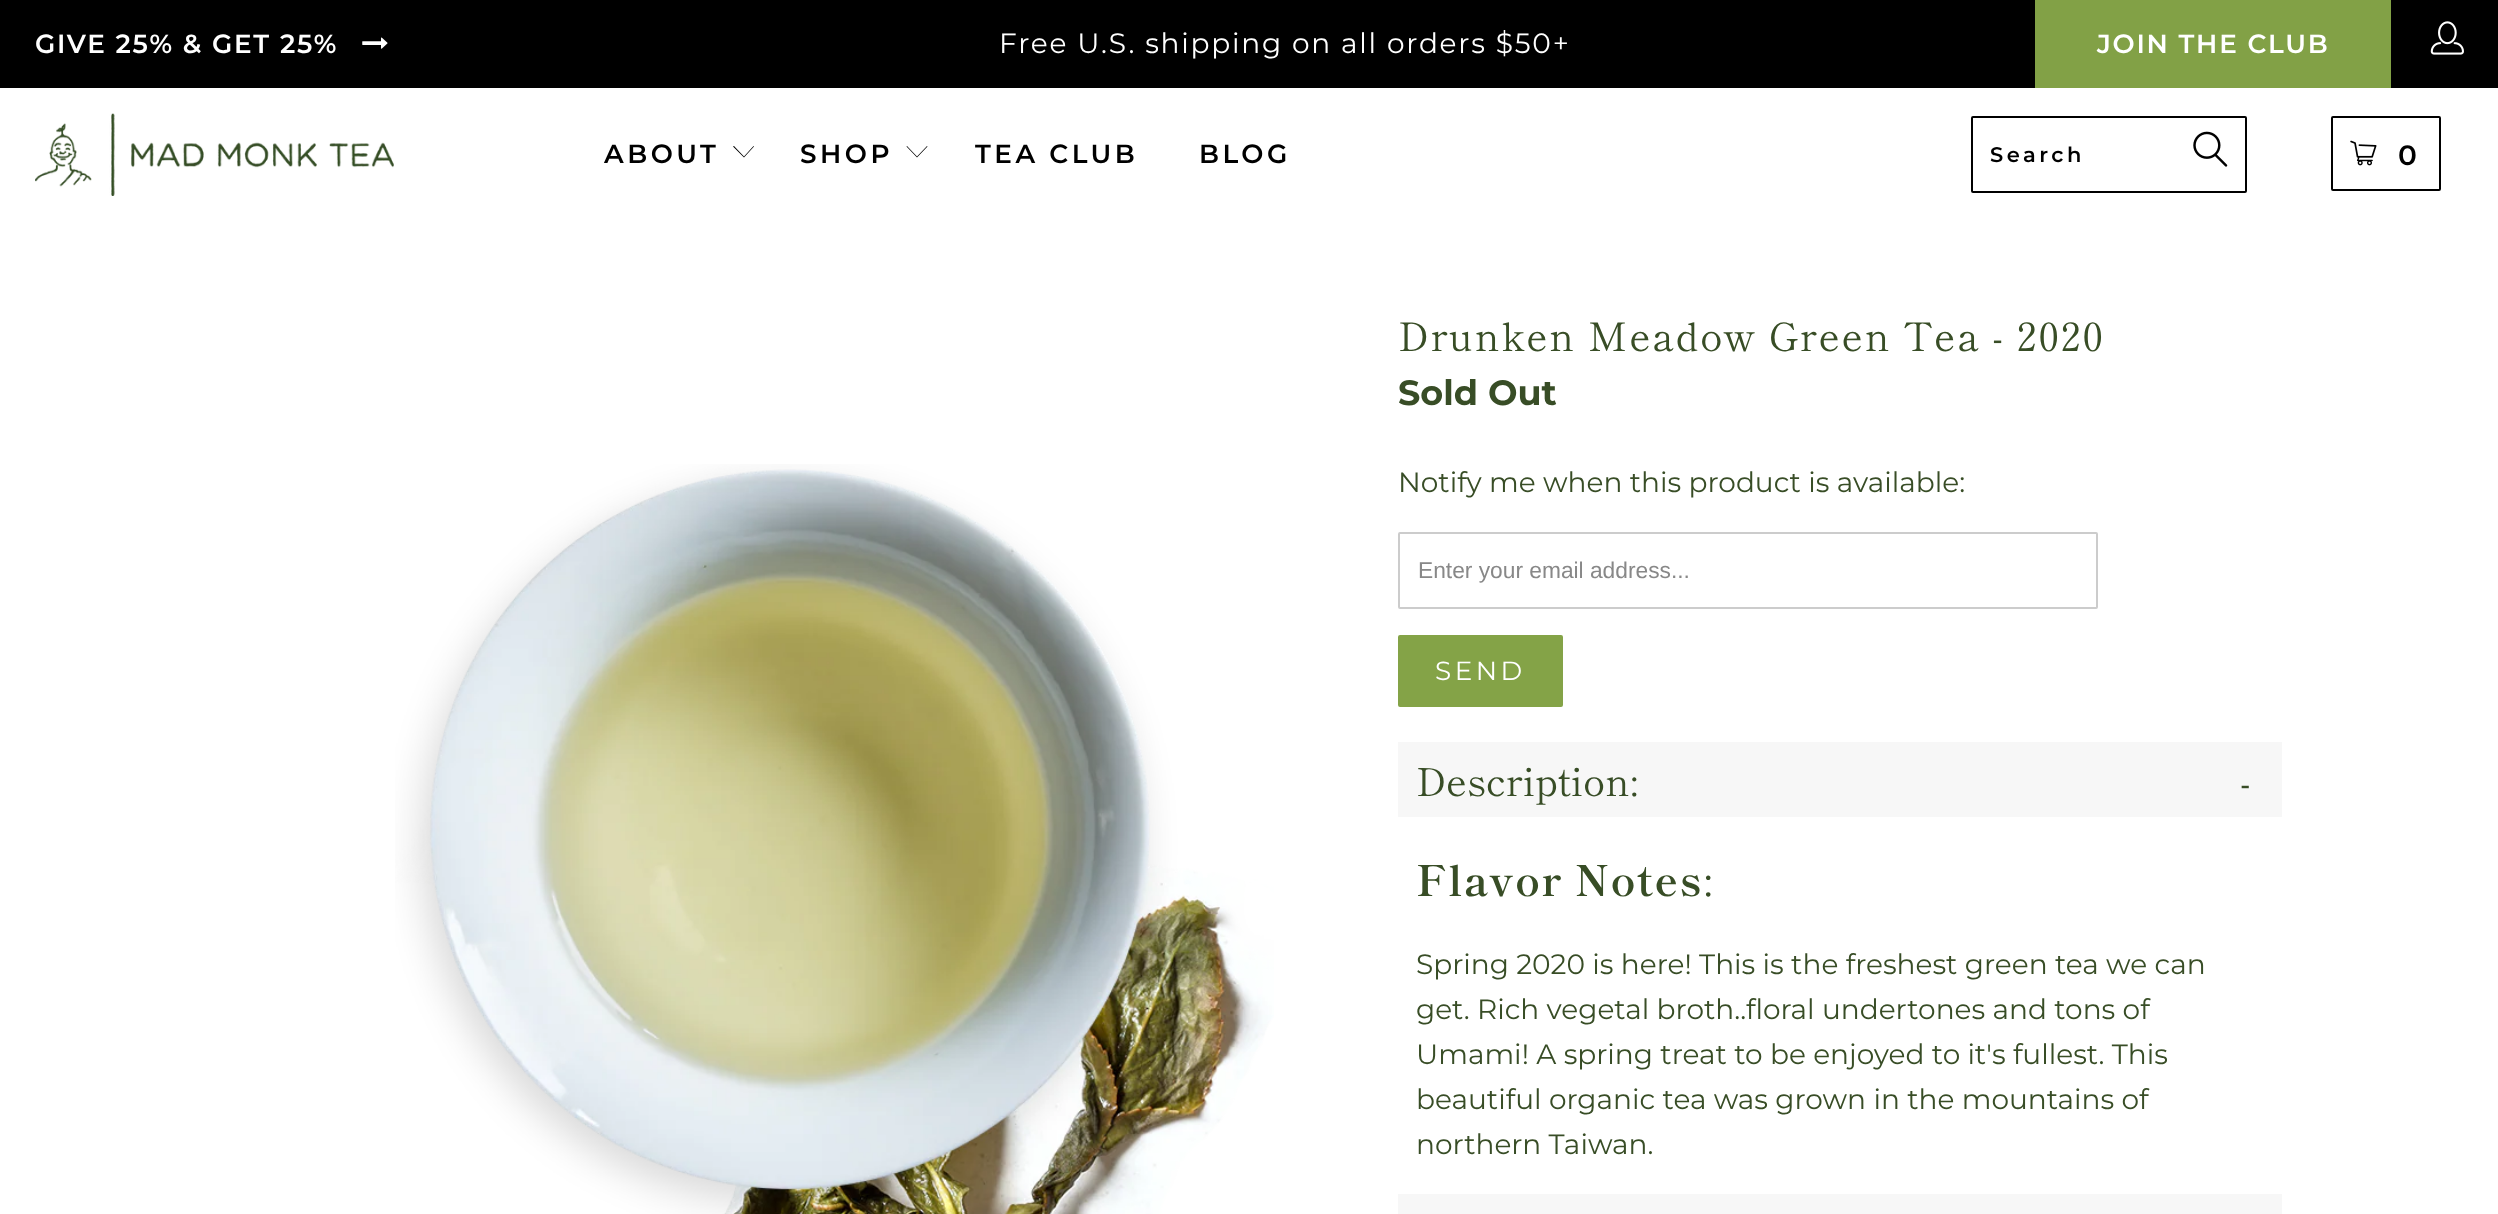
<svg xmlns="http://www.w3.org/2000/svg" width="2498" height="1214">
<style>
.a{font:600 26.25px Montserrat;letter-spacing:1.75px;fill:#fff}
.b{font:28px Montserrat;letter-spacing:1.75px;fill:#fff}
.c{font:600 26.25px Montserrat;letter-spacing:3.5px;fill:#000}
.d{font:600 21px Montserrat;letter-spacing:3.5px;fill:#000}
.e{font:600 28px Montserrat;letter-spacing:1.75px;fill:#000}
.f{font:39.25px Shippori Mincho;letter-spacing:1.75px;fill:#384d26}
.g{font:bold 35px Montserrat;fill:#384d26}
.h{font:28px Montserrat;fill:#384d26}
.i{font:22.75px Liberation Sans;fill:#888}
.j{font:26.25px Montserrat;letter-spacing:3.5px;fill:#fff}
.k{font:38.5px Shippori Mincho;fill:#384d26}
.l{font:bold 42px Shippori Mincho;letter-spacing:1.75px;fill:#384d26}
.m{font:42px Shippori Mincho;letter-spacing:1.75px;fill:#384d26}
</style>
<rect width="100%" height="100%" fill="#fff"/>
<path fill="#000" d="M0 0h2498v88H0z"/>
<image href="1.png" x="362" y="37" width="26" height="12"/>
<path fill="#82a146" d="M2035 0h356v88H2035z"/>
<image href="2.png" x="2430" y="21" width="34" height="34"/>
<image href="3.png" x="35" y="113" width="359" height="83"/>
<path fill="#000" d="M744 157.5l-11-11l1-.5l10 10.5l9.5-10.5l.5 .5z"/>
<path fill="#000" d="M917 157.5l-10.5-11l.5-.5l10 10.5l10-10.5l.5 .5z"/>
<rect fill="none" stroke="#000" stroke-width="2" x="1972" y="117" width="274" height="75" rx="1"/>
<image href="4.png" x="2193" y="131" width="35" height="36"/>
<rect fill="none" stroke="#000" stroke-width="2" x="2332" y="117" width="108" height="73" rx="1"/>
<image href="5.png" x="2350" y="140" width="27" height="26"/>
<image href="6.png" x="395" y="464" width="879" height="750"/>
<rect fill="none" stroke="#ccc" stroke-width="2" x="1399" y="533" width="698" height="75" rx="1"/>
<rect fill="#84a347" stroke="#84a347" stroke-width="2" x="1399" y="636" width="163" height="70" rx="1"/>
<path fill="#f7f7f7" d="M1398 742h884v75H1398z"/>
<path fill="#f7f7f7" d="M1398 1194h884v20H1398z"/>
<text class="a" x="35" y="53">GIVE 25% &amp; GET 25%</text>
<text class="b" x="999" y="53">Free U.S. shipping on all orders $50+</text>
<text class="a" x="2097" y="53">JOIN THE CLUB</text>
<text class="c" x="604" y="163">ABOUT</text>
<text class="c" x="800" y="163">SHOP</text>
<text class="c" x="975" y="163">TEA CLUB</text>
<text class="c" x="1199" y="163">BLOG</text>
<text class="d" x="1990" y="162">Search</text>
<text class="e" x="2398" y="165">0</text>
<text class="f" x="1398" y="351">Drunken Meadow Green Tea - 2020</text>
<text class="g" x="1398" y="405">Sold Out</text>
<text class="h" x="1398" y="492">Notify me when this product is available:</text>
<text class="i" x="1418" y="578">Enter your email address...</text>
<text class="j" x="1435" y="680">SEND</text>
<text class="k" x="1416" y="796">Description:</text>
<text class="k" x="2240" y="796">-</text>
<text class="l" x="1416" y="896">Flavor Notes</text>
<text class="m" x="1703" y="896">:</text>
<text class="h" x="1416" y="974">Spring 2020 is here! This is the freshest green tea we can</text>
<text class="h" x="1416" y="1019">get. Rich vegetal broth..floral undertones and tons of</text>
<text class="h" x="1416" y="1064">Umami! A spring treat to be enjoyed to it's fullest. This</text>
<text class="h" x="1416" y="1109">beautiful organic tea was grown in the mountains of</text>
<text class="h" x="1416" y="1154">northern Taiwan.</text>
</svg>
